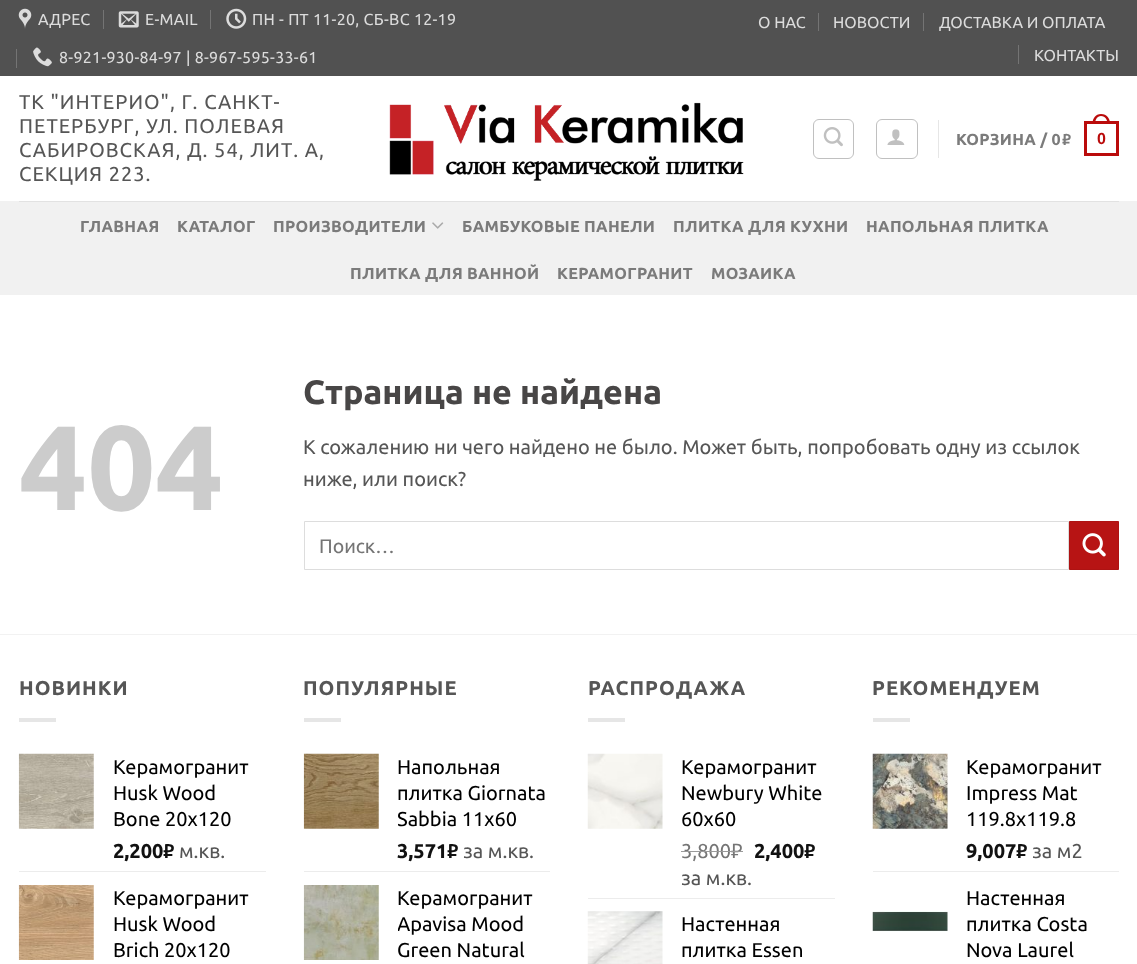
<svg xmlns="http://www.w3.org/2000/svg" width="1137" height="964">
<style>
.a{font:16px Ubuntu;letter-spacing:0.3px;fill:#dcdcdc}
.b{font:16px Ubuntu;fill:#dcdcdc}
.c{font:20px Ubuntu;letter-spacing:1px;fill:#565656}
.d{font:bold 16px Ubuntu;letter-spacing:0.3px;fill:#7b7b7b}
.e{font:bold 16px 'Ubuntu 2';letter-spacing:0.3px;fill:#7b7b7b}
.f{font:bold 16px Liberation Sans;letter-spacing:0.3px;fill:#ba0b0b}
.g{font:bold 120px Ubuntu;fill:#ccc}
.h{font:bold 34px Ubuntu;fill:#484646}
.i{font:20px Ubuntu;fill:#565656}
.j{font:19.5px Ubuntu;fill:#757575}
.k{font:bold 20px Ubuntu;letter-spacing:1px;fill:#565656}
.l{font:20px Ubuntu;fill:#000}
.m{font:bold 20px Ubuntu;fill:#111}
.n{font:bold 20px 'Ubuntu 2';fill:#111}
.o{font:20px Ubuntu;fill:#757575}
.p{font:20px Noto Sans;fill:#757575}
</style>
<defs>
<clipPath id="clip1"><path d="M398 754h152v79H398z"/></clipPath>
<clipPath id="clip2"><path d="M398 885h152v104H398z"/></clipPath>
</defs>
<rect width="100%" height="100%" fill="#fff"/>
<path fill="#515151" d="M0 0h1137v76H0z"/>
<image href="1.png" x="18" y="8" width="14" height="21"/>
<path fill="#747474" d="M103 10h1v19H103z"/>
<image href="2.png" x="118" y="11" width="21" height="17"/>
<path fill="#747474" d="M210 10h1v19H210z"/>
<image href="3.png" x="226" y="8" width="21" height="21"/>
<path fill="#747474" d="M16 49h1v19H16z"/>
<image href="4.png" x="33" y="47" width="19" height="20"/>
<path fill="#747474" d="M818 13h1v18H818z"/>
<path fill="#747474" d="M923 13h1v18H923z"/>
<path fill="#747474" d="M1018 45h1v19H1018z"/>
<image href="5.png" x="389" y="102" width="355" height="79"/>
<rect fill="none" stroke="#c0c0c0" x="813.5" y="119.5" width="40" height="39" rx="5.5"/>
<image href="6.png" x="823" y="127" width="20" height="20"/>
<rect fill="none" stroke="#c0c0c0" x="876.5" y="119.5" width="41" height="39" rx="5.5"/>
<image href="7.png" x="887" y="129" width="18" height="16"/>
<path fill="#e6e6e6" d="M938 120h1v38H938z"/>
<path fill="none" stroke="#ba0b0b" stroke-width="3" d="M1085.5 122.5h32v32H1085.5z"/>
<path fill="#ba0b0b" fill-rule="evenodd" d="M1101 114c6 0 9 4.5 9 10h-17.5c0-5.5 3-10 8.5-10zm0 2c4.5 0 6.5 4 6.5 8h-12.5c0-4 2-8 6-8z"/>
<path fill="#f1f1f1" d="M0 201h1137v94H0z"/>
<path fill="#e2e2e2" d="M19 201h1100v1H19z"/>
<image href="8.png" x="432" y="222" width="12" height="7"/>
<path fill="none" stroke="#ddd" d="M304.5 521.5h764v48H304.5z"/>
<path fill="#b71414" stroke="#ae1313" d="M1069.5 521.5h49v48H1069.5z"/>
<image href="9.png" x="1082" y="533" width="24" height="24"/>
<path fill="#f2f2f2" d="M0 634h1137v1H0z"/>
<path fill="#e6e6e6" d="M19 718h37v4H19z"/>
<image href="10.png" x="18" y="753" width="76" height="76"/>
<path fill="#ececec" d="M19 871h247v1H19z"/>
<image href="11.png" x="18" y="885" width="76" height="75"/>
<path fill="#e6e6e6" d="M304 718h37v4H304z"/>
<image href="12.png" x="303" y="753" width="76" height="76"/>
<path fill="#ececec" d="M304 871h246v1H304z"/>
<image href="13.png" x="303" y="885" width="76" height="75"/>
<path fill="#e6e6e6" d="M588 718h37v4H588z"/>
<image href="14.png" x="587" y="753" width="76" height="76"/>
<path fill="#ececec" d="M588 898h247v1H588z"/>
<image href="15.png" x="587" y="911" width="76" height="53"/>
<path fill="#e6e6e6" d="M873 718h37v4H873z"/>
<image href="16.png" x="872" y="753" width="76" height="76"/>
<path fill="#ececec" d="M873 871h246v1H873z"/>
<image href="17.png" x="872" y="911" width="76" height="21"/>
<text class="a" x="38" y="25">АДРЕС</text>
<text class="a" x="145" y="25">E-MAIL</text>
<text class="a" x="252" y="25">ПН - ПТ 11-20, СБ-ВС 12-19</text>
<text class="a" x="59" y="63">8-921-930-84-97 | 8-967-595-33-61</text>
<text class="b" x="758" y="28">О НАС</text>
<text class="b" x="833" y="28">НОВОСТИ</text>
<text class="b" x="939" y="28">ДОСТАВКА И ОПЛАТА</text>
<text class="b" x="1034" y="61">КОНТАКТЫ</text>
<text class="c" x="19" y="109">ТК "ИНТЕРИО", Г. САНКТ-</text>
<text class="c" x="19" y="133">ПЕТЕРБУРГ, УЛ. ПОЛЕВАЯ</text>
<text class="c" x="19" y="157">САБИРОВСКАЯ, Д. 54, ЛИТ. А,</text>
<text class="c" x="19" y="181">СЕКЦИЯ 223.</text>
<text class="d" x="956" y="145">КОРЗИНА / 0</text>
<text class="e" x="1062" y="145">₽</text>
<text class="f" x="1097" y="144">0</text>
<text class="d" x="80" y="232">ГЛАВНАЯ</text>
<text class="d" x="177" y="232">КАТАЛОГ</text>
<text class="d" x="273" y="232">ПРОИЗВОДИТЕЛИ</text>
<text class="d" x="462" y="232">БАМБУКОВЫЕ ПАНЕЛИ</text>
<text class="d" x="673" y="232">ПЛИТКА ДЛЯ КУХНИ</text>
<text class="d" x="866" y="232">НАПОЛЬНАЯ ПЛИТКА</text>
<text class="d" x="350" y="279">ПЛИТКА ДЛЯ ВАННОЙ</text>
<text class="d" x="557" y="279">КЕРАМОГРАНИТ</text>
<text class="d" x="711" y="279">МОЗАИКА</text>
<text class="g" x="19" y="510">404</text>
<text class="h" x="303" y="404">Страница не найдена</text>
<text class="i" x="303" y="454">К сожалению ни чего найдено не было. Может быть, попробовать одну из ссылок</text>
<text class="i" x="303" y="486">ниже, или поиск?</text>
<text class="j" x="319" y="553">Поиск…</text>
<text class="k" x="19" y="695">НОВИНКИ</text>
<text class="l" x="113" y="774">Керамогранит</text>
<text class="l" x="113" y="800">Husk Wood</text>
<text class="l" x="113" y="826">Bone 20x120</text>
<text class="m" x="113" y="858">2,200</text>
<text class="n" x="163" y="858">₽</text>
<text class="i" x="179" y="858">м.кв.</text>
<text class="l" x="113" y="905">Керамогранит</text>
<text class="l" x="113" y="931">Husk Wood</text>
<text class="l" x="113" y="957">Brich 20x120</text>
<text class="k" x="303" y="695">ПОПУЛЯРНЫЕ</text>
<text class="l" x="397" y="774">Напольная</text>
<text class="l" x="397" y="800">плитка Giornata</text>
<g clip-path="url(#clip1)">
<text class="l" x="397" y="826">Sabbia 11x60</text>
</g>
<text class="m" x="397" y="858">3,571</text>
<text class="n" x="447" y="858">₽</text>
<text class="i" x="463" y="858">за м.кв.</text>
<text class="l" x="397" y="905">Керамогранит</text>
<g clip-path="url(#clip2)">
<text class="l" x="397" y="931">Apavisa Mood</text>
</g>
<text class="l" x="397" y="957">Green Natural</text>
<text class="k" x="588" y="695">РАСПРОДАЖА</text>
<text class="l" x="681" y="774">Керамогранит</text>
<text class="l" x="681" y="800">Newbury White</text>
<text class="l" x="681" y="826">60x60</text>
<text class="o" x="681" y="858">3,800</text>
<path fill="#9a9a9a" d="M681 851h50v1H681z"/>
<text class="p" x="731" y="858">₽</text>
<path fill="#9a9a9a" d="M731 851h12v1H731z"/>
<text class="m" x="754" y="858">2,400</text>
<text class="n" x="804" y="858">₽</text>
<text class="i" x="681" y="885">за м.кв.</text>
<text class="l" x="681" y="931">Настенная</text>
<text class="l" x="681" y="957">плитка Essen</text>
<text class="k" x="872" y="695">РЕКОМЕНДУЕМ</text>
<text class="l" x="966" y="774">Керамогранит</text>
<text class="l" x="966" y="800">Impress Mat</text>
<text class="l" x="966" y="826">119.8x119.8</text>
<text class="m" x="966" y="858">9,007</text>
<text class="n" x="1016" y="858">₽</text>
<text class="i" x="1032" y="858">за м2</text>
<text class="l" x="966" y="905">Настенная</text>
<text class="l" x="966" y="931">плитка Costa</text>
<text class="l" x="966" y="957">Nova Laurel</text>
</svg>
